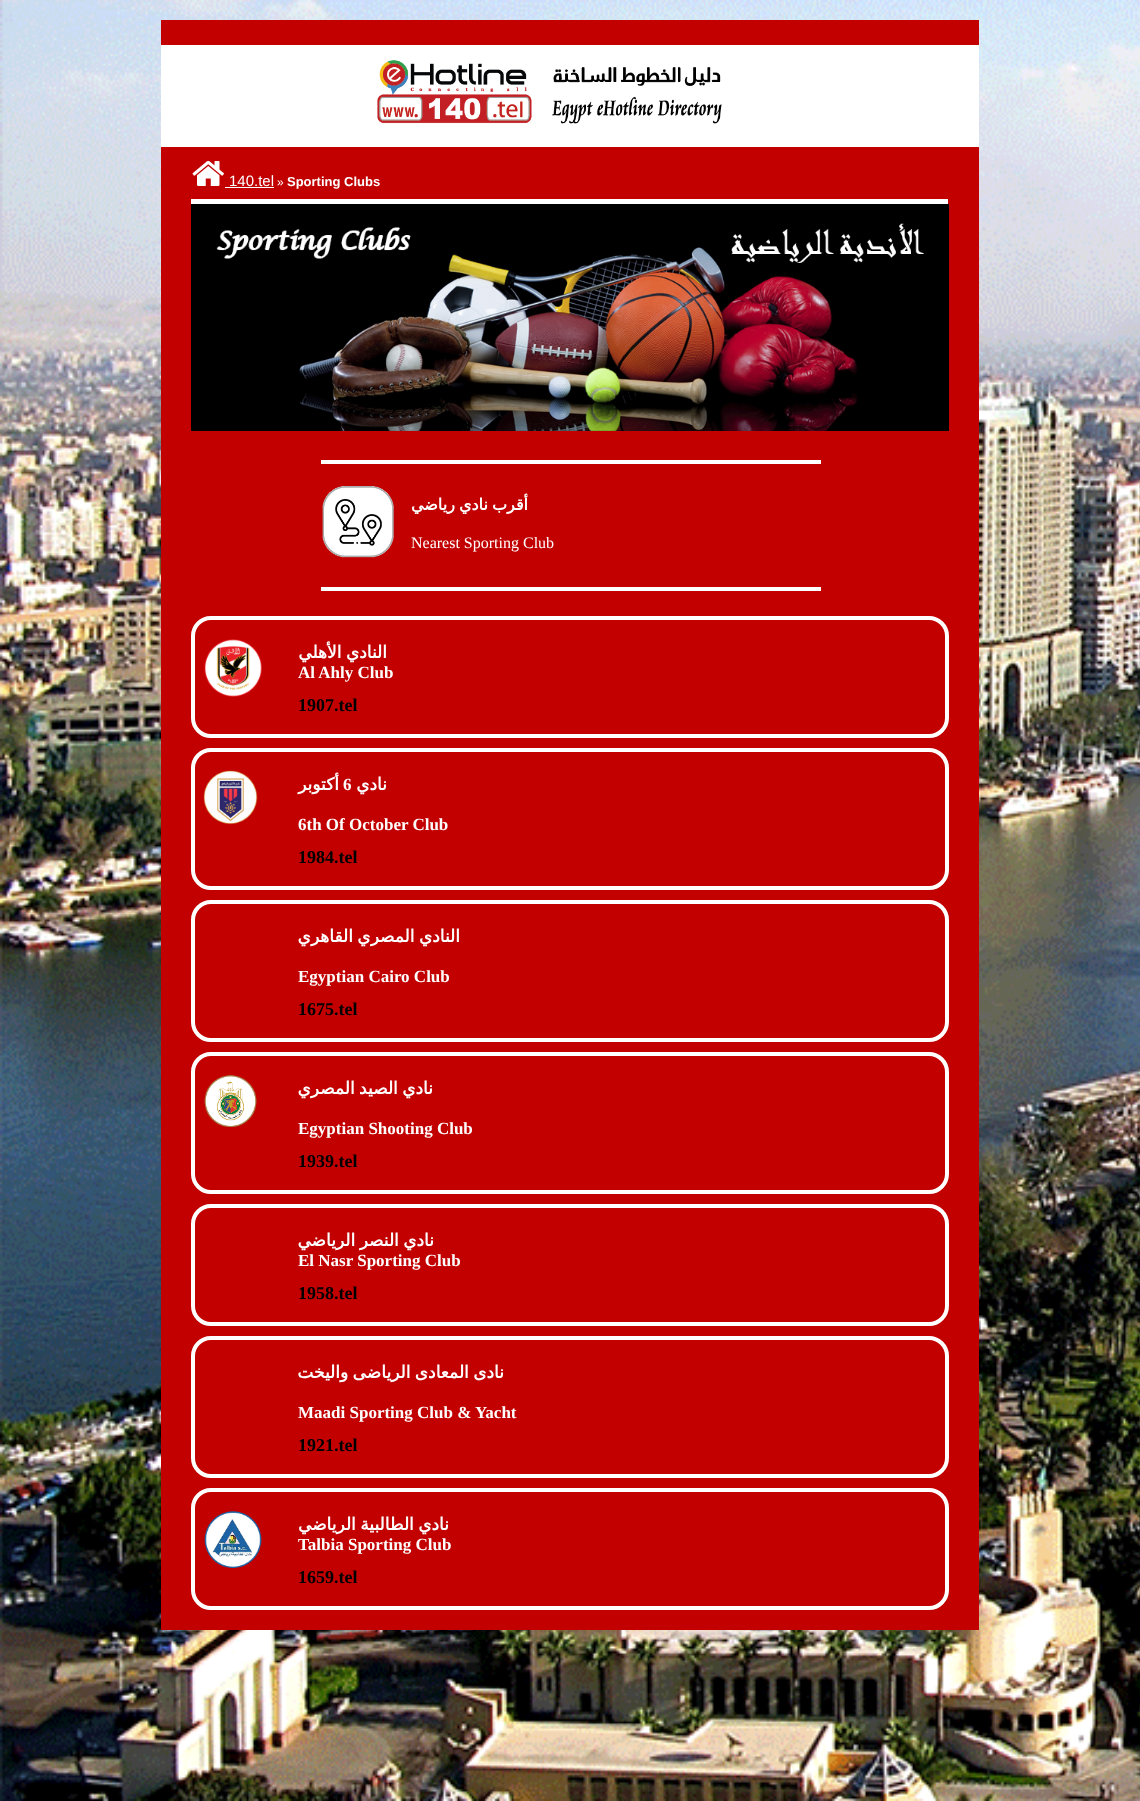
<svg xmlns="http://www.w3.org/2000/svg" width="1140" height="1801">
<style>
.a{font:15px Liberation Sans;fill:#fff}
.b{font:12px Liberation Sans;fill:#fff}
.c{font:bold 13px Liberation Sans;fill:#fff}
.d{font:bold 16px DejaVu Sans;direction:rtl;fill:#fff}
.e{font:16px Liberation Serif;fill:#fff}
.f{font:bold 17px DejaVu Sans;direction:rtl;fill:#fff}
.g{font:bold 17px Liberation Serif;fill:#fff}
.h{font:bold 18px Liberation Serif;fill:#000}
</style>
<rect width="100%" height="100%" fill="#fff"/>
<image href="1.png" x="0" y="0" width="1140" height="1801"/>
<path fill="#c20000" d="M161 20h818v1610H161z"/>
<path fill="#fff" d="M161 45h818v102H161z"/>
<image href="2.png" x="377" y="60" width="345" height="64"/>
<path fill="#fff" d="M191 199h757v5H191z"/>
<image href="3.png" x="192" y="160" width="32" height="26"/>
<path fill="#fff" d="M225 187h49v1H225z"/>
<image href="4.png" x="191" y="204" width="758" height="227"/>
<path fill="#fff" d="M321 460h500v4H321z"/>
<path fill="#fff" d="M321 587h500v4H321z"/>
<image href="5.png" x="322" y="486" width="72" height="72"/>
<rect fill="none" stroke="#fff" stroke-width="4" x="193" y="618" width="754" height="118" rx="18"/>
<image href="6.png" x="204" y="639" width="58" height="58"/>
<rect fill="none" stroke="#fff" stroke-width="4" x="193" y="750" width="754" height="138" rx="18"/>
<image href="7.png" x="203" y="770" width="55" height="55"/>
<rect fill="none" stroke="#fff" stroke-width="4" x="193" y="902" width="754" height="138" rx="18"/>
<rect fill="none" stroke="#fff" stroke-width="4" x="193" y="1054" width="754" height="138" rx="18"/>
<image href="8.png" x="204" y="1075" width="53" height="52"/>
<rect fill="none" stroke="#fff" stroke-width="4" x="193" y="1206" width="754" height="118" rx="18"/>
<rect fill="none" stroke="#fff" stroke-width="4" x="193" y="1338" width="754" height="138" rx="18"/>
<rect fill="none" stroke="#fff" stroke-width="4" x="193" y="1490" width="754" height="118" rx="18"/>
<image href="9.png" x="204" y="1511" width="58" height="57"/>
<text class="a" x="229" y="186">140.tel</text>
<text class="b" x="277" y="186">»</text>
<text class="c" x="287" y="186">Sporting Clubs</text>
<text class="d" x="528" y="510" word-spacing="-1">أقرب نادي رياضي</text>
<text class="e" x="411" y="548">Nearest Sporting Club</text>
<text class="f" x="387" y="658" word-spacing="-1">النادي الأهلي</text>
<text class="g" x="298" y="678">Al Ahly Club</text>
<text class="h" x="298" y="711">1907.tel</text>
<text class="f" x="339" y="790">أكتوبر</text>
<text class="g" x="343" y="790">6</text>
<text class="f" x="387" y="790">نادي</text>
<text class="g" x="298" y="830">6th Of October Club</text>
<text class="h" x="298" y="863">1984.tel</text>
<text class="f" x="460" y="942" word-spacing="-1">النادي المصري القاهري</text>
<text class="g" x="298" y="982">Egyptian Cairo Club</text>
<text class="h" x="298" y="1015">1675.tel</text>
<text class="f" x="433" y="1094" word-spacing="-1">نادي الصيد المصري</text>
<text class="g" x="298" y="1134">Egyptian Shooting Club</text>
<text class="h" x="298" y="1167">1939.tel</text>
<text class="f" x="434" y="1246" word-spacing="-1">نادي النصر الرياضي</text>
<text class="g" x="298" y="1266">El Nasr Sporting Club</text>
<text class="h" x="298" y="1299">1958.tel</text>
<text class="f" x="504" y="1378" word-spacing="-1">نادى المعادى الرياضى واليخت</text>
<text class="g" x="298" y="1418">Maadi Sporting Club &amp; Yacht</text>
<text class="h" x="298" y="1451">1921.tel</text>
<text class="f" x="449" y="1530" word-spacing="-1">نادي الطالبية الرياضي</text>
<text class="g" x="298" y="1550">Talbia Sporting Club</text>
<text class="h" x="298" y="1583">1659.tel</text>
</svg>
